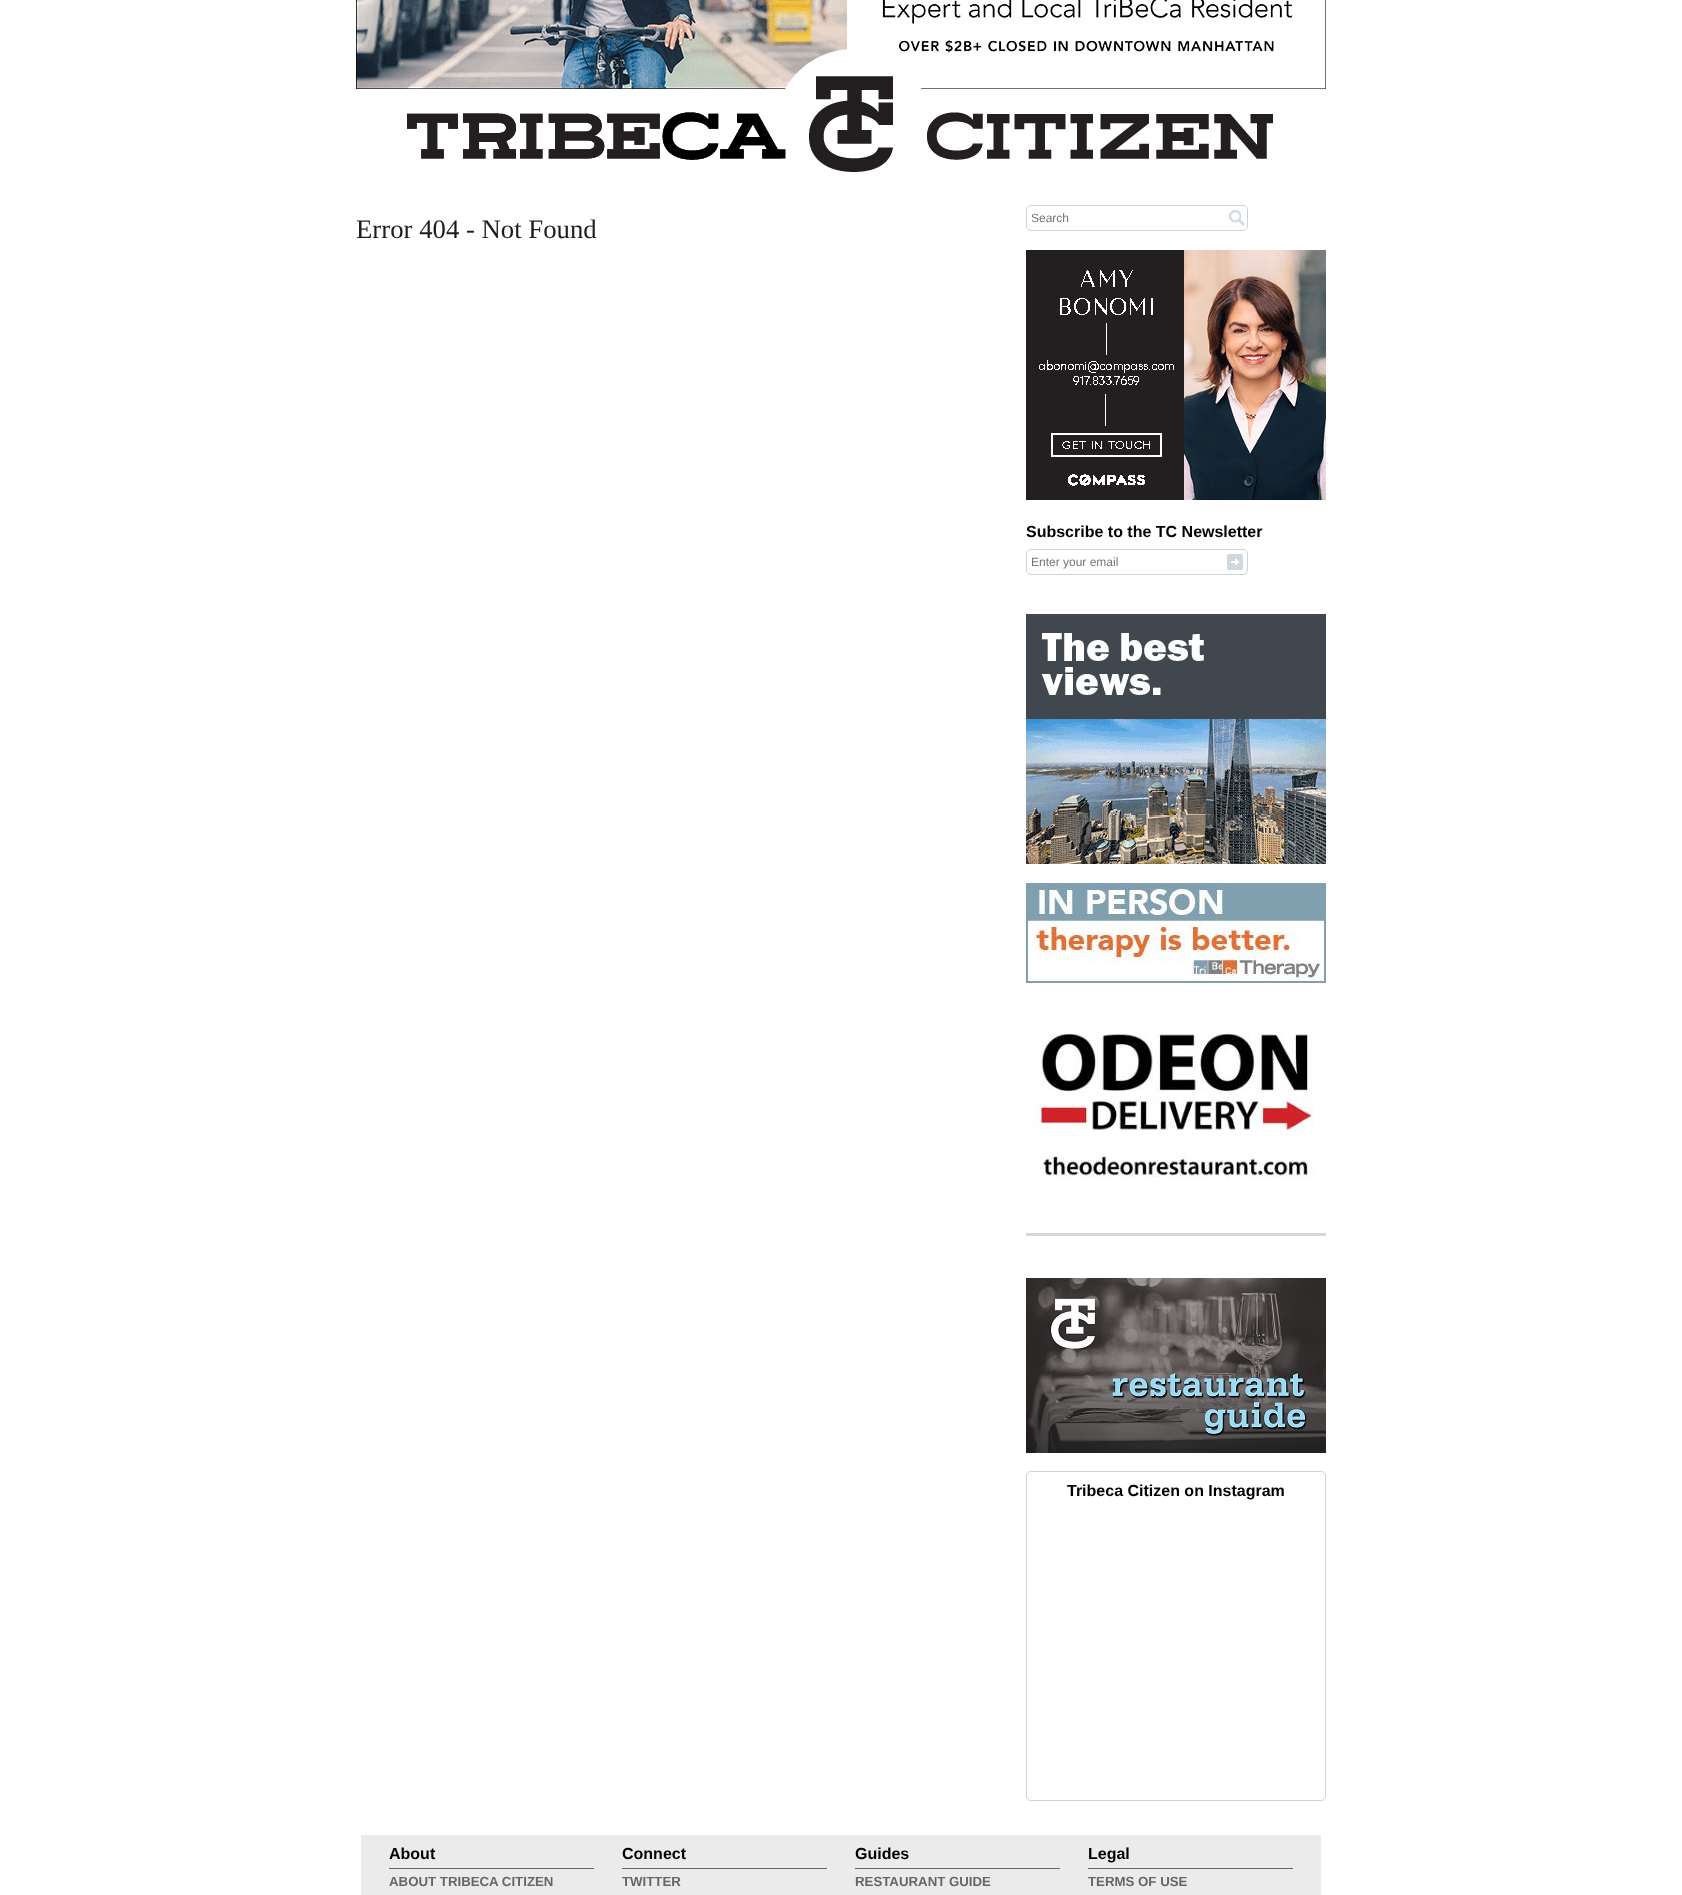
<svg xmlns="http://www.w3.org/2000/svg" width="1682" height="1895">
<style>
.a{font:26.75px Liberation Serif;fill:#1d1d1d}
.b{font:12px Liberation Sans;fill:#757575}
.c{font:bold 16px Liberation Sans;fill:#000}
.d{font:bold 13.25px Liberation Sans;fill:#666}
</style>
<rect width="100%" height="100%" fill="#fff"/>
<image href="1.png" x="356" y="0" width="970" height="89"/>
<image href="2.png" x="785" y="49" width="137" height="40"/>
<image href="3.png" x="407" y="89" width="866" height="83"/>
<rect fill="none" stroke="#d1d1d1" x="1026.5" y="205.5" width="221" height="25" rx="4.5"/>
<image href="4.png" x="1229" y="210" width="16" height="16"/>
<image href="5.png" x="1026" y="250" width="300" height="250"/>
<rect fill="none" stroke="#d1d1d1" x="1026.5" y="549.5" width="221" height="25" rx="4.5"/>
<image href="6.png" x="1227" y="554" width="16" height="16"/>
<image href="7.png" x="1026" y="614" width="300" height="250"/>
<image href="8.png" x="1026" y="883" width="300" height="100"/>
<image href="9.png" x="1026" y="1033" width="289" height="145"/>
<path fill="#d7d7d7" d="M1026 1233h300v3H1026z"/>
<image href="10.png" x="1026" y="1278" width="300" height="175"/>
<rect fill="none" stroke="#d1d1d1" x="1026.5" y="1471.5" width="299" height="329" rx="4.5"/>
<path fill="#ebebeb" d="M361 1835h960v60H361z"/>
<path fill="#666" d="M389 1868h205v1H389z"/>
<path fill="#666" d="M622 1868h205v1H622z"/>
<path fill="#666" d="M855 1868h205v1H855z"/>
<path fill="#666" d="M1088 1868h205v1H1088z"/>
<text class="a" x="356" y="238">Error 404 - Not Found</text>
<text class="b" x="1031" y="222">Search</text>
<text class="c" x="1026" y="537">Subscribe to the TC Newsletter</text>
<text class="b" x="1031" y="566">Enter your email</text>
<text class="c" x="1067" y="1496">Tribeca Citizen on Instagram</text>
<text class="c" x="389" y="1859">About</text>
<text class="d" x="389" y="1886">ABOUT TRIBECA CITIZEN</text>
<text class="c" x="622" y="1859">Connect</text>
<text class="d" x="622" y="1886">TWITTER</text>
<text class="c" x="855" y="1859">Guides</text>
<text class="d" x="855" y="1886">RESTAURANT GUIDE</text>
<text class="c" x="1088" y="1859">Legal</text>
<text class="d" x="1088" y="1886">TERMS OF USE</text>
</svg>
